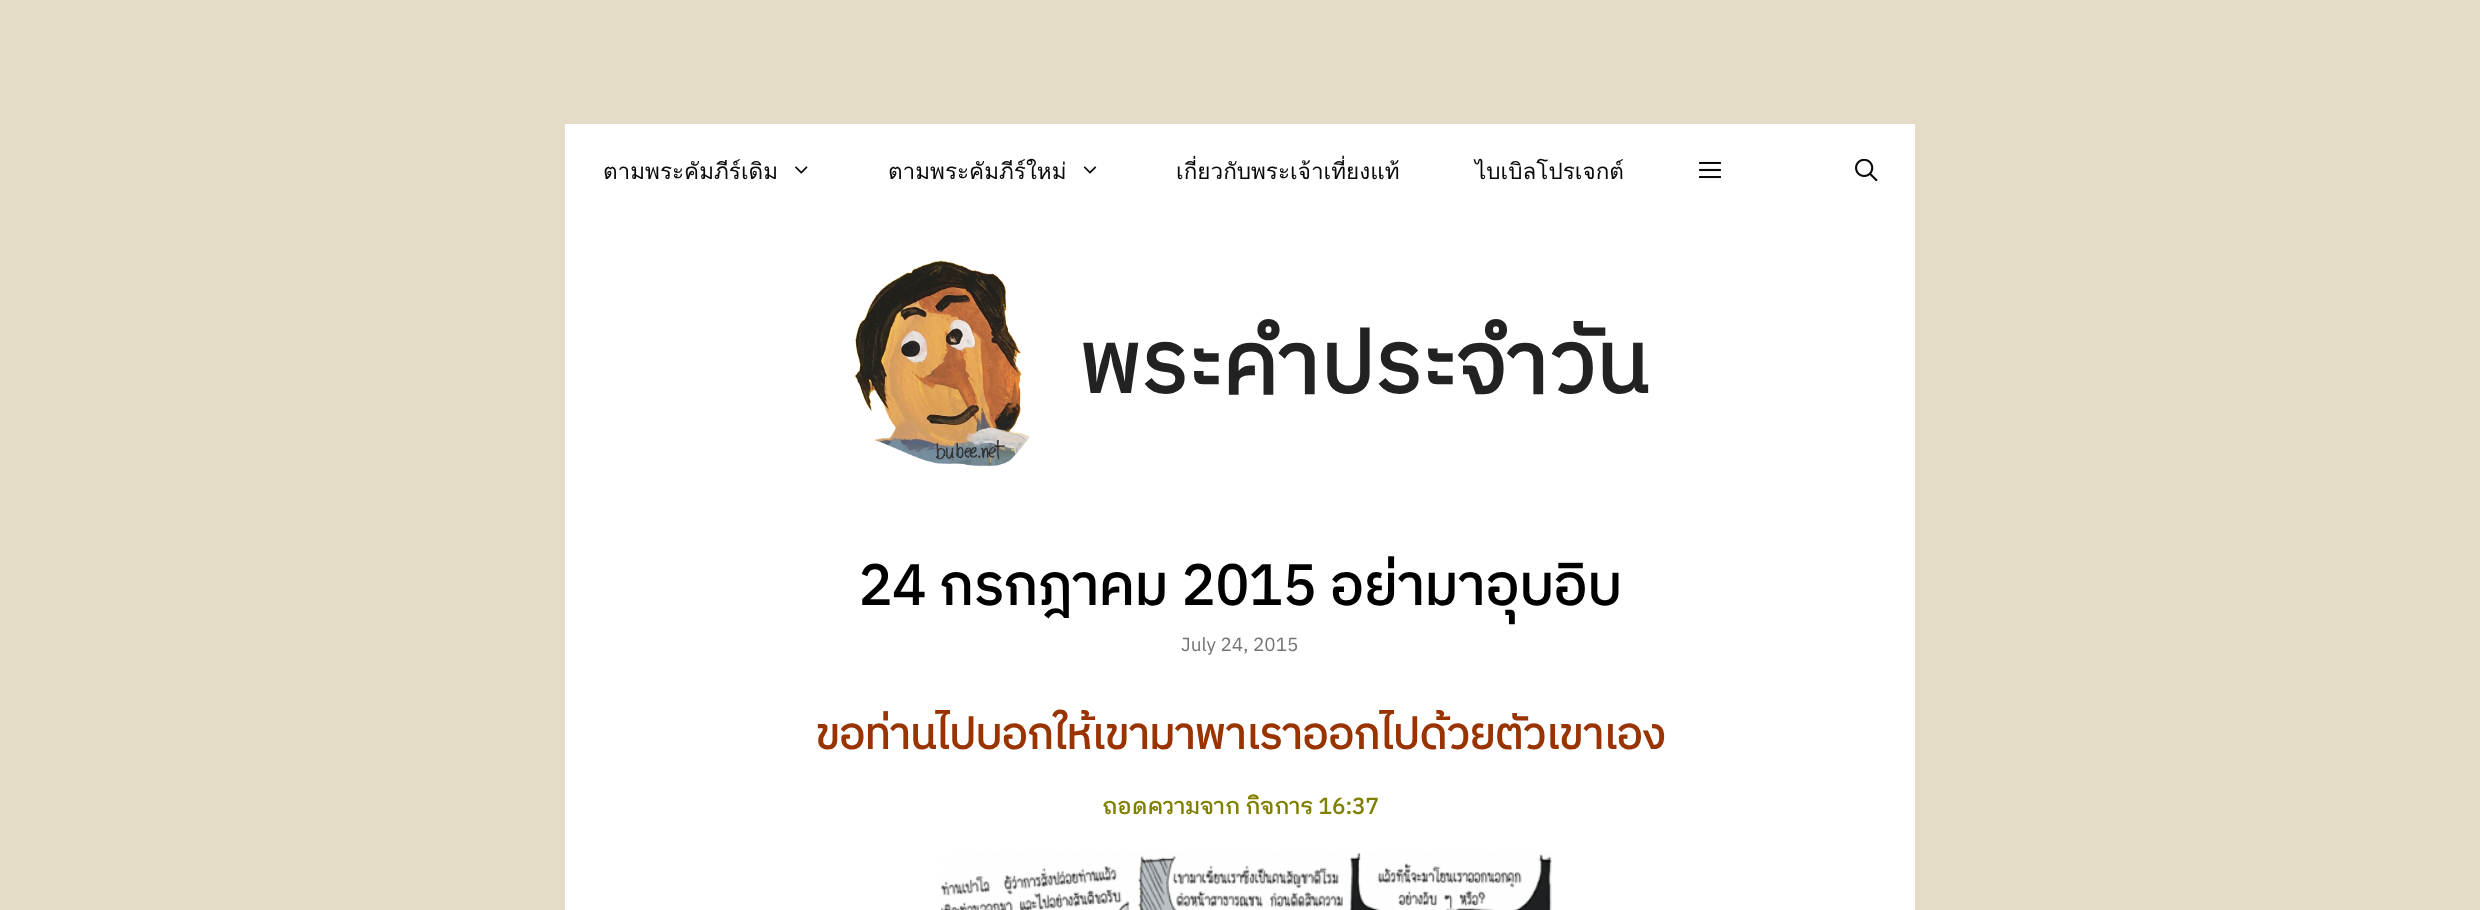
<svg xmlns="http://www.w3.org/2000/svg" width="2480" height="910">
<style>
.a{font:22.5px Loma;fill:#0a0a0a}
.b{font:bold 87.5px IBM Plex Sans Thai;fill:#222}
.c{font:bold 56.25px IBM Plex Sans Thai;fill:#000}
.d{font:19px IBM Plex Sans Thai Looped;fill:#757575}
.e{font:bold 43.75px IBM Plex Sans Thai;letter-spacing:-0.65px;fill:#930}
.f{font:bold 22.5px IBM Plex Sans Thai Looped;fill:#808000}
</style>
<rect width="100%" height="100%" fill="#e5dcc7"/>
<path fill="#fff" d="M565 124h1350v94H565z"/>
<image href="1.png" x="795" y="166" width="13" height="8"/>
<image href="2.png" x="1083" y="166" width="14" height="8"/>
<image href="3.png" x="1699" y="161" width="22" height="18"/>
<image href="4.png" x="1855" y="159" width="23" height="22"/>
<path fill="#fff" d="M565 218h1350v692H565z"/>
<image href="5.png" x="842" y="260" width="188" height="207"/>
<image href="6.png" x="941" y="852" width="611" height="58"/>
<text class="a" x="603" y="179">ตามพระคัมภีร์เดิม</text>
<text class="a" x="888" y="179">ตามพระคัมภีร์ใหม่</text>
<text class="a" x="1176" y="179">เกี่ยวกับพระเจ้าเที่ยงแท้</text>
<text class="a" x="1475" y="179">ไบเบิลโปรเจกต์</text>
<text class="b" x="1078" y="393">พระคำประจำวัน</text>
<text class="c" x="858" y="605">24 กรกฎาคม 2015 อย่ามาอุบอิบ</text>
<text class="d" x="1181" y="651">July 24, 2015</text>
<text class="e" x="815" y="749">ขอท่านไปบอกให้เขามาพาเราออกไปด้วยตัวเขาเอง</text>
<text class="f" x="1102" y="814">ถอดความจาก กิจการ 16:37</text>
</svg>
